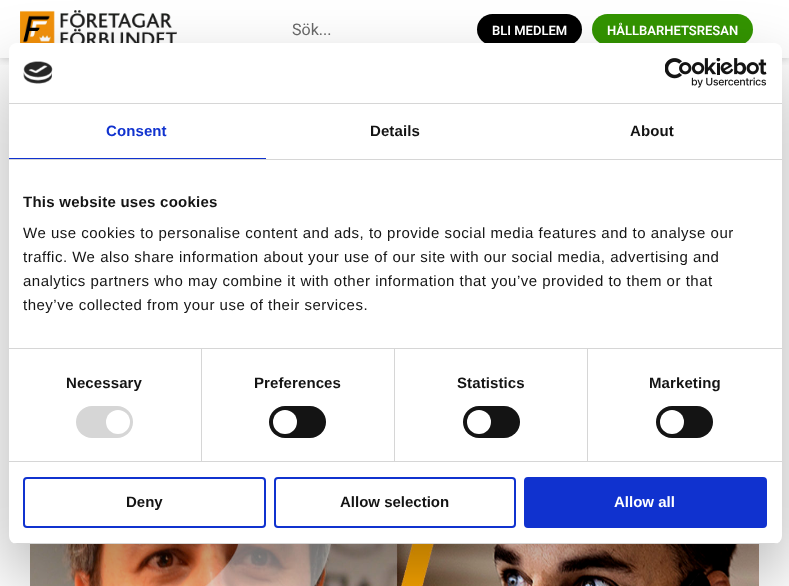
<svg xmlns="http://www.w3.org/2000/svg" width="789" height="586">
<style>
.a{font:16px Roboto;fill:#666}
.b{font:600 13px Roboto;fill:#fff}
.c{font:bold 15px Liberation Sans;letter-spacing:0.1px;fill:#1032cf}
.d{font:bold 15px Liberation Sans;letter-spacing:0.1px;fill:#141414}
.e{font:bold 15px Liberation Sans;letter-spacing:0.25px;fill:#141414}
.f{font:15px Liberation Sans;letter-spacing:0.5px;fill:#141414}
.g{font:bold 15px Liberation Sans;fill:#141414}
.h{font:bold 15px Liberation Sans;fill:#fff}
</style>
<defs>
<clipPath id="clip1"><path d="M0 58h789v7H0z"/></clipPath>
<clipPath id="clip2"><rect x="9" y="43" width="773" height="501" rx="8"/></clipPath>
</defs>
<rect width="100%" height="100%" fill="#fff"/>
<g clip-path="url(#clip1)">
<path fill="#00000040" filter="blur(5px)" d="M0 0h789v58H0z"/>
</g>
<image href="1.png" x="20" y="10" width="157" height="33"/>
<rect fill="#000" x="477" y="14" width="105" height="31" rx="15.5"/>
<rect fill="#339400" x="592" y="14" width="161" height="31" rx="15.5"/>
<image href="4.png" x="30" y="544" width="729" height="42"/>
<rect fill="#0000004d" filter="blur(34px)" x="9" y="75" width="773" height="501" rx="8"/>
<rect fill="#fff" x="9" y="43" width="773" height="501" rx="8"/>
<path fill="#d6d6d6" d="M9 103h773v1H9z"/>
<image href="2.png" x="23" y="61" width="30" height="23"/>
<image href="3.png" x="665" y="58" width="102" height="30"/>
<path fill="#d6d6d6" d="M9 159h773v1H9z"/>
<path fill="#1032cf" d="M9 158h257v1H9z"/>
<path fill="#d6d6d6" d="M9 348h773v1H9z"/>
<path fill="#d6d6d6" d="M9 461h773v1H9z"/>
<path fill="#d6d6d6" d="M201 349h1v112H201z"/>
<rect fill="#d6d6d6" x="76" y="406" width="57" height="32" rx="16"/>
<circle fill="#fff" cx="118" cy="422" r="12"/>
<path fill="#d6d6d6" d="M394 349h1v112H394z"/>
<rect fill="#141414" x="269" y="406" width="57" height="32" rx="16"/>
<circle fill="#fff" cx="285" cy="422" r="12"/>
<path fill="#d6d6d6" d="M587 349h1v112H587z"/>
<rect fill="#141414" x="463" y="406" width="57" height="32" rx="16"/>
<circle fill="#fff" cx="479" cy="422" r="12"/>
<rect fill="#141414" x="656" y="406" width="57" height="32" rx="16"/>
<circle fill="#fff" cx="672" cy="422" r="12"/>
<g clip-path="url(#clip2)">
<path fill="#d6d6d6" d="M9 543h773v1H9z"/>
</g>
<rect fill="none" stroke="#1032cf" stroke-width="2" x="24" y="478" width="241" height="49" rx="3"/>
<rect fill="none" stroke="#1032cf" stroke-width="2" x="275" y="478" width="240" height="49" rx="3"/>
<rect fill="#1032cf" stroke="#1032cf" stroke-width="2" x="525" y="478" width="241" height="49" rx="3"/>
<text class="a" x="292" y="35">Sök...</text>
<text class="b" x="492" y="35">BLI MEDLEM</text>
<text class="b" x="607" y="35">HÅLLBARHETSRESAN</text>
<text class="c" x="106" y="136">Consent</text>
<text class="d" x="370" y="136">Details</text>
<text class="d" x="630" y="136">About</text>
<text class="e" x="23" y="207">This website uses cookies</text>
<text class="f" x="23" y="238">We use cookies to personalise content and ads, to provide social media features and to analyse our</text>
<text class="f" x="23" y="262">traffic. We also share information about your use of our site with our social media, advertising and</text>
<text class="f" x="23" y="286">analytics partners who may combine it with other information that you’ve provided to them or that</text>
<text class="f" x="23" y="310">they’ve collected from your use of their services.</text>
<text class="d" x="66" y="388">Necessary</text>
<text class="d" x="254" y="388">Preferences</text>
<text class="d" x="457" y="388">Statistics</text>
<text class="d" x="649" y="388">Marketing</text>
<text class="g" x="126" y="507">Deny</text>
<text class="g" x="340" y="507">Allow selection</text>
<text class="h" x="614" y="507">Allow all</text>
</svg>
